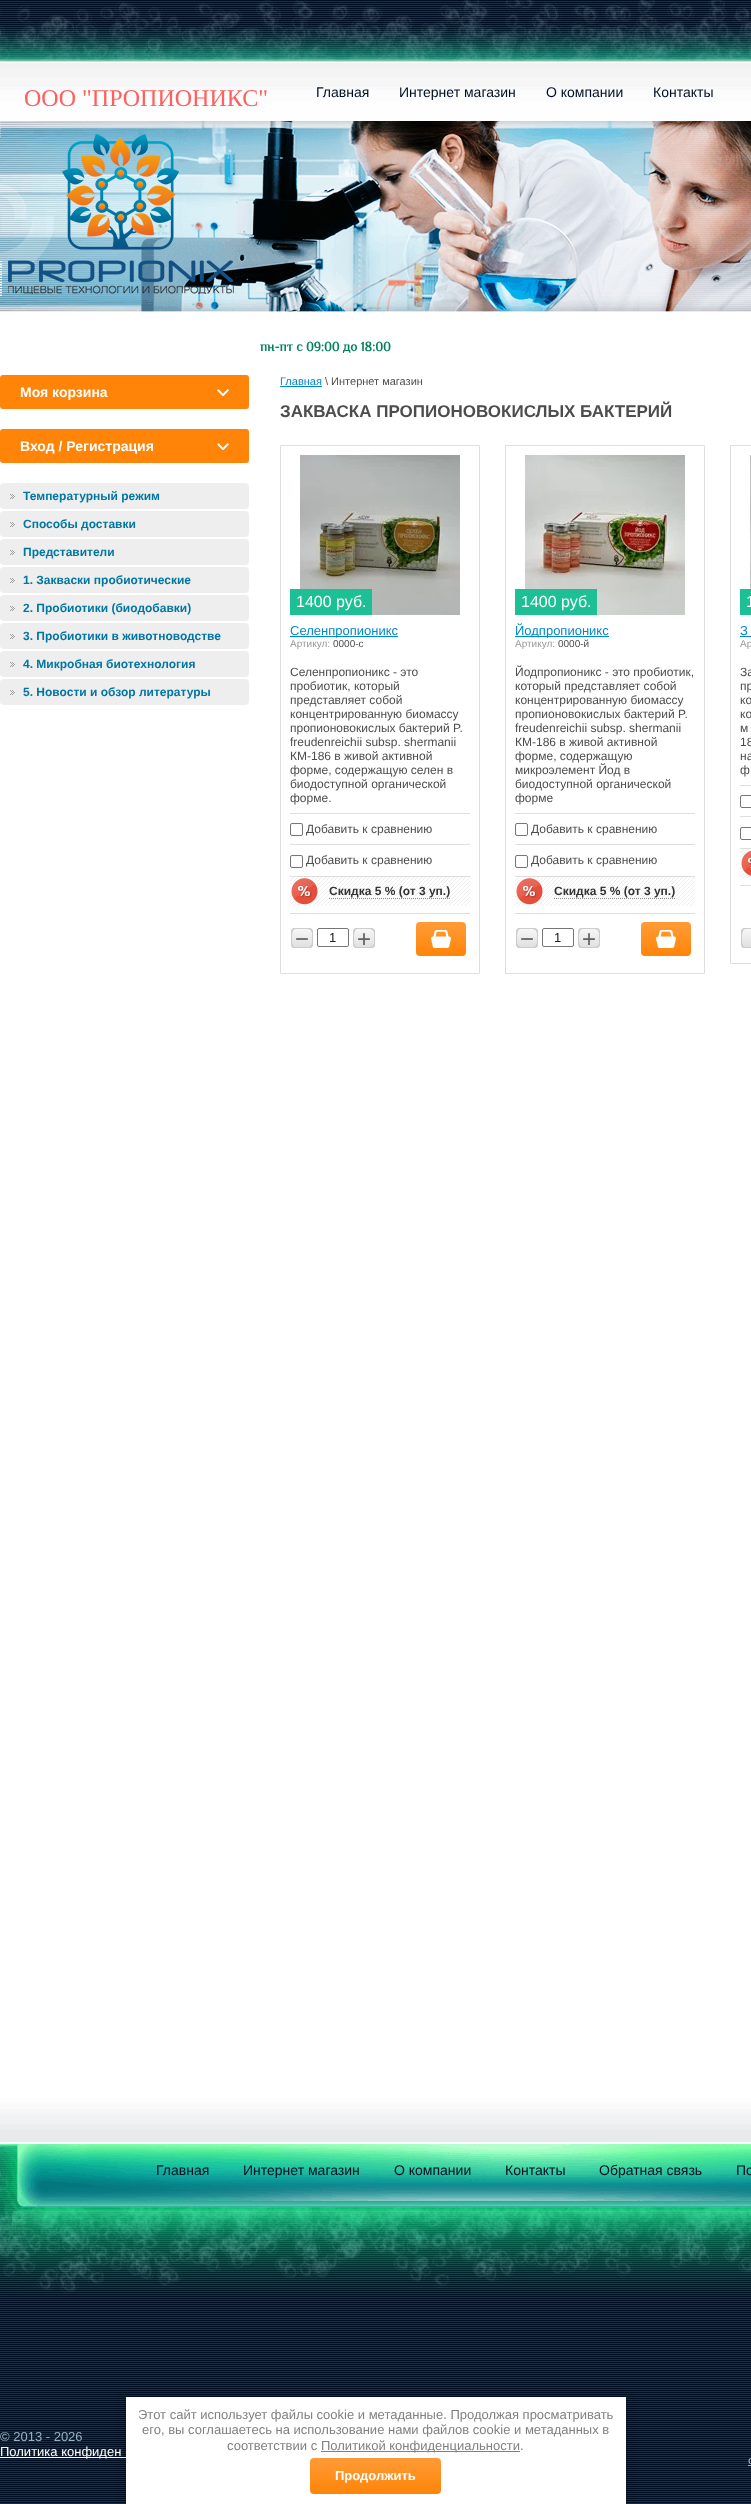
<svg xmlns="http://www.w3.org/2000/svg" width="751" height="2504">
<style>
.a{font:24px Liberation Serif;fill:#fc615e}
.b{font:14px Liberation Sans;fill:#000f23}
.c{font:bold 13.25px Philosopher;fill:#03815f}
.d{font:bold 14px Liberation Sans;fill:#fff}
.e{font:bold 12px Liberation Sans;fill:#0076a3}
.f{font:11px Liberation Sans;fill:#08c}
.g{font:11px Liberation Sans;fill:#4d4d4d}
.h{font:bold 17px Liberation Sans;fill:#4d4d4d}
.i{font:16px Liberation Sans;fill:#fff}
.j{font:13px Liberation Sans;fill:#08c}
.k{font:10px Liberation Sans;fill:#999}
.l{font:10px Liberation Sans;fill:#4d4d4d}
.m{font:12px Liberation Sans;fill:#4d4d4d}
.n{font:bold 12px Liberation Sans;fill:#333}
.o{font:24px Liberation Sans;fill:#626262}
.p{font:13px Liberation Sans;fill:#222}
.q{font:13px Liberation Sans;fill:#97b4c3}
.r{font:13px Liberation Sans;fill:#fff}
.s{font:13px Liberation Serif;fill:#97b4c3}
.t{font:13px Liberation Sans;fill:#808080}
.u{font:bold 13px Liberation Sans;fill:#fff}
</style>
<defs>
<linearGradient id="g1" gradientUnits="userSpaceOnUse" x1="302" y1="928" x2="302" y2="948"><stop offset="0" stop-color="#f8f8f8"/><stop offset="1" stop-color="#dfdfdf"/></linearGradient>
<linearGradient id="g2" gradientUnits="userSpaceOnUse" x1="364" y1="928" x2="364" y2="948"><stop offset="0" stop-color="#f8f8f8"/><stop offset="1" stop-color="#dfdfdf"/></linearGradient>
<linearGradient id="g3" gradientUnits="userSpaceOnUse" x1="441" y1="922" x2="441" y2="956"><stop offset="0" stop-color="#ff9c38"/><stop offset="1" stop-color="#ff8408"/></linearGradient>
<linearGradient id="g4" gradientUnits="userSpaceOnUse" x1="527" y1="928" x2="527" y2="948"><stop offset="0" stop-color="#f8f8f8"/><stop offset="1" stop-color="#dfdfdf"/></linearGradient>
<linearGradient id="g5" gradientUnits="userSpaceOnUse" x1="589" y1="928" x2="589" y2="948"><stop offset="0" stop-color="#f8f8f8"/><stop offset="1" stop-color="#dfdfdf"/></linearGradient>
<linearGradient id="g6" gradientUnits="userSpaceOnUse" x1="666" y1="922" x2="666" y2="956"><stop offset="0" stop-color="#ff9c38"/><stop offset="1" stop-color="#ff8408"/></linearGradient>
<linearGradient id="g7" gradientUnits="userSpaceOnUse" x1="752" y1="928" x2="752" y2="948"><stop offset="0" stop-color="#f8f8f8"/><stop offset="1" stop-color="#dfdfdf"/></linearGradient>
<linearGradient id="g8" gradientUnits="userSpaceOnUse" x1="376" y1="2458" x2="376" y2="2494"><stop offset="0" stop-color="#ff9b37"/><stop offset="1" stop-color="#ff8408"/></linearGradient>
</defs>
<rect width="100%" height="100%" fill="#fff"/>
<image href="1.png" x="0" y="0" width="751" height="2504"/>
<image href="2.png" x="0" y="0" width="751" height="62"/>
<image href="3.png" x="0" y="0" width="751" height="312"/>
<image href="4.png" x="8" y="134" width="226" height="160"/>
<path fill="#fff" d="M0 312h751v1730H0z"/>
<rect fill="#ff8407" y="375" width="249" height="34" rx="3"/>
<image href="5.png" x="217" y="389" width="12" height="7"/>
<rect fill="#ff8407" y="429" width="249" height="34" rx="3"/>
<image href="5.png" x="217" y="443" width="12" height="7"/>
<rect fill="#eee" y="483" width="249" height="26" rx="4"/>
<image href="6.png" x="10" y="494" width="5" height="5"/>
<rect fill="#eee" y="511" width="249" height="26" rx="4"/>
<image href="6.png" x="10" y="522" width="5" height="5"/>
<rect fill="#eee" y="539" width="249" height="26" rx="4"/>
<image href="6.png" x="10" y="550" width="5" height="5"/>
<rect fill="#eee" y="567" width="249" height="26" rx="4"/>
<image href="6.png" x="10" y="578" width="5" height="5"/>
<rect fill="#eee" y="595" width="249" height="26" rx="4"/>
<image href="6.png" x="10" y="606" width="5" height="5"/>
<rect fill="#eee" y="623" width="249" height="26" rx="4"/>
<image href="6.png" x="10" y="634" width="5" height="5"/>
<rect fill="#eee" y="651" width="249" height="26" rx="4"/>
<image href="6.png" x="10" y="662" width="5" height="5"/>
<rect fill="#eee" y="679" width="249" height="26" rx="4"/>
<image href="6.png" x="10" y="690" width="5" height="5"/>
<path fill="#08c" d="M280 386h42v1H280z"/>
<path fill="none" stroke="#dedede" d="M280.5 445.5h199v528H280.5z"/>
<image href="7.png" x="300" y="455" width="160" height="160"/>
<path fill="#1cc094" d="M290 589h82v26H290z"/>
<path fill="#08c" d="M290 636h108v1H290z"/>
<path fill="#dedede" d="M290 813h180v1H290z"/>
<rect fill="none" stroke="#767676" x="290.5" y="823.5" width="12" height="12" rx="1.5"/>
<path fill="#dedede" d="M290 844h180v1H290z"/>
<rect fill="none" stroke="#767676" x="290.5" y="855.5" width="12" height="12" rx="1.5"/>
<image href="8.png" x="290" y="877" width="180" height="29"/>
<path fill="#dedede" d="M290 876h180v1H290z"/>
<image href="9.png" x="290" y="877" width="29" height="28"/>
<path fill="none" stroke="#919191" stroke-dasharray="1 1" d="M329 898.5h121"/>
<path fill="#dedede" d="M290 913h180v1H290z"/>
<rect fill="url(#g1)" x="291" y="928" width="22" height="20" rx="4"/>
<path fill="#ccc" d="M293 928.5c-1 1-2 2-2 3.5v12c0 2 2 4 4 4h14c1.5 0 3-1 3.5-2c-2.5 2-8 1-10.5 1h-7.5l-1-1c-1-1-1.5-2-1.5-3.5v-10.5c0-1 .5-2.5 1-3.5z"/>
<path fill="#ccc" d="M294 929c3.5 0 14.5-1 16.5 1l1.5 2.5c0 1.5 0 10 0 12.5c0 1-.5 2-1 2.5c1-.5 2-2 2-3.5v-12c0-2-2-4-4-4h-14c-1.5 0-2.5 .5-3.5 1.5c1 0 1.5-.5 2.5-.5z"/>
<path fill="#ccc" d="M291.5 946.5c1 1 2 1.5 3.5 1.5h14c2 0 4-2 4-4v-12c0-1.5-1-3-2-3.5c.5 .5 1 1.5 1 2.5c0 2.5 0 11 0 12.5l-1.5 2.5c-2 2-7.5 1-10.5 1c-2 0-6.5 .5-8.5-.5z"/>
<path fill="#ccc" d="M296 929c3 0 14-1 16.5 1c-.5-1-2-2-3.5-2h-14c-2 0-4 2-4 4v12c0 1.5 1 2.5 2 3.5c-1.5-2-1.5-14.5 0-16.5c.5-1.5 1.5-2 3-2z"/>
<rect fill="none" stroke="#767676" x="317.5" y="928.5" width="31" height="18" rx="1.5"/>
<rect fill="url(#g2)" x="353" y="928" width="22" height="20" rx="4"/>
<path fill="#ccc" d="M355 928.5c-1 1-2 2-2 3.5v12c0 2 2 4 4 4h14c1.5 0 3-1 3.5-2c-2.5 2-8 1-10.5 1h-7.5l-1-1c-1-1-1.5-2-1.5-3.5v-10.5c0-1 .5-2.5 1-3.5z"/>
<path fill="#ccc" d="M356 929c3.5 0 14.5-1 16.5 1l1.5 2.5c0 1.5 0 10 0 12.5c0 1-.5 2-1 2.5c1-.5 2-2 2-3.5v-12c0-2-2-4-4-4h-14c-1.5 0-2.5 .5-3.5 1.5c1 0 1.5-.5 2.5-.5z"/>
<path fill="#ccc" d="M353.5 946.5c1 1 2 1.5 3.5 1.5h14c2 0 4-2 4-4v-12c0-1.5-1-3-2-3.5c.5 .5 1 1.5 1 2.5c0 2.5 0 11 0 12.5l-1.5 2.5c-2 2-7.5 1-10.5 1c-2 0-6.5 .5-8.5-.5z"/>
<path fill="#ccc" d="M358 929c3 0 14-1 16.5 1c-.5-1-2-2-3.5-2h-14c-2 0-4 2-4 4v12c0 1.5 1 2.5 2 3.5c-1.5-2-1.5-14.5 0-16.5c.5-1.5 1.5-2 3-2z"/>
<rect fill="url(#g3)" x="416" y="922" width="50" height="34" rx="4"/>
<image href="10.png" x="431" y="930" width="20" height="18"/>
<path fill="none" stroke="#dedede" d="M505.5 445.5h199v528H505.5z"/>
<image href="11.png" x="525" y="455" width="160" height="160"/>
<path fill="#1cc094" d="M515 589h82v26H515z"/>
<path fill="#08c" d="M515 636h94v1H515z"/>
<path fill="#dedede" d="M515 813h180v1H515z"/>
<rect fill="none" stroke="#767676" x="515.5" y="823.5" width="12" height="12" rx="1.5"/>
<path fill="#dedede" d="M515 844h180v1H515z"/>
<rect fill="none" stroke="#767676" x="515.5" y="855.5" width="12" height="12" rx="1.5"/>
<image href="8.png" x="515" y="877" width="180" height="29"/>
<path fill="#dedede" d="M515 876h180v1H515z"/>
<image href="9.png" x="515" y="877" width="29" height="28"/>
<path fill="none" stroke="#919191" stroke-dasharray="1 1" d="M554 898.5h121"/>
<path fill="#dedede" d="M515 913h180v1H515z"/>
<rect fill="url(#g4)" x="516" y="928" width="22" height="20" rx="4"/>
<path fill="#ccc" d="M518 928.5c-1 1-2 2-2 3.5v12c0 2 2 4 4 4h14c1.5 0 3-1 3.5-2c-2.5 2-8 1-10.5 1h-7.5l-1-1c-1-1-1.5-2-1.5-3.5v-10.5c0-1 .5-2.5 1-3.5z"/>
<path fill="#ccc" d="M519 929c3.5 0 14.5-1 16.5 1l1.5 2.5c0 1.5 0 10 0 12.5c0 1-.5 2-1 2.5c1-.5 2-2 2-3.5v-12c0-2-2-4-4-4h-14c-1.5 0-2.5 .5-3.5 1.5c1 0 1.5-.5 2.5-.5z"/>
<path fill="#ccc" d="M516.5 946.5c1 1 2 1.5 3.5 1.5h14c2 0 4-2 4-4v-12c0-1.5-1-3-2-3.5c.5 .5 1 1.5 1 2.5c0 2.5 0 11 0 12.5l-1.5 2.5c-2 2-7.5 1-10.5 1c-2 0-6.5 .5-8.5-.5z"/>
<path fill="#ccc" d="M521 929c3 0 14-1 16.5 1c-.5-1-2-2-3.5-2h-14c-2 0-4 2-4 4v12c0 1.5 1 2.5 2 3.5c-1.5-2-1.5-14.5 0-16.5c.5-1.5 1.5-2 3-2z"/>
<rect fill="none" stroke="#767676" x="542.5" y="928.5" width="31" height="18" rx="1.5"/>
<rect fill="url(#g5)" x="578" y="928" width="22" height="20" rx="4"/>
<path fill="#ccc" d="M580 928.5c-1 1-2 2-2 3.5v12c0 2 2 4 4 4h14c1.5 0 3-1 3.5-2c-2.5 2-8 1-10.5 1h-7.5l-1-1c-1-1-1.5-2-1.5-3.5v-10.5c0-1 .5-2.5 1-3.5z"/>
<path fill="#ccc" d="M581 929c3.5 0 14.5-1 16.5 1l1.5 2.5c0 1.5 0 10 0 12.5c0 1-.5 2-1 2.5c1-.5 2-2 2-3.5v-12c0-2-2-4-4-4h-14c-1.5 0-2.5 .5-3.5 1.5c1 0 1.5-.5 2.5-.5z"/>
<path fill="#ccc" d="M578.5 946.5c1 1 2 1.5 3.5 1.5h14c2 0 4-2 4-4v-12c0-1.5-1-3-2-3.5c.5 .5 1 1.5 1 2.5c0 2.5 0 11 0 12.5l-1.5 2.5c-2 2-7.5 1-10.5 1c-2 0-6.5 .5-8.5-.5z"/>
<path fill="#ccc" d="M583 929c3 0 14-1 16.5 1c-.5-1-2-2-3.5-2h-14c-2 0-4 2-4 4v12c0 1.5 1 2.5 2 3.5c-1.5-2-1.5-14.5 0-16.5c.5-1.5 1.5-2 3-2z"/>
<rect fill="url(#g6)" x="641" y="922" width="50" height="34" rx="4"/>
<image href="10.png" x="656" y="930" width="20" height="18"/>
<path fill="none" stroke="#dedede" d="M730.5 445.5h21v518H730.5z"/>
<image href="12.png" x="750" y="455" width="1" height="134"/>
<path fill="#1cc094" d="M740 589h11v26H740z"/>
<path fill="#08c" d="M740 636h11v1H740z"/>
<path fill="#dedede" d="M740 785h11v1H740z"/>
<rect fill="none" stroke="#767676" x="740.5" y="795.5" width="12" height="12" rx="1.5"/>
<path fill="#dedede" d="M740 816h11v1H740z"/>
<rect fill="none" stroke="#767676" x="740.5" y="827.5" width="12" height="12" rx="1.5"/>
<image href="13.png" x="740" y="849" width="9" height="29"/>
<path fill="#dedede" d="M740 848h11v1H740z"/>
<image href="14.png" x="740" y="850" width="11" height="26"/>
<path fill="#dedede" d="M740 885h11v1H740z"/>
<rect fill="url(#g7)" x="741" y="928" width="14" height="20" rx="4"/>
<path fill="#ccc" d="M743 928.5c-1 1-2 2-2 3.5v12c0 2 2 4 4 4h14c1.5 0 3-1 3.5-2c-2.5 2-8 1-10.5 1h-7.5l-1-1c-1-1-1.5-2-1.5-3.5v-10.5c0-1 .5-2.5 1-3.5z"/>
<path fill="#ccc" d="M744 929c3.5 0 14.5-1 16.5 1l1.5 2.5c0 1.5 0 10 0 12.5c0 1-.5 2-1 2.5c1-.5 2-2 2-3.5v-12c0-2-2-4-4-4h-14c-1.5 0-2.5 .5-3.5 1.5c1 0 1.5-.5 2.5-.5zm-2.5 17.5c1 1 2 1.5 3.5 1.5h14c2 0 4-2 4-4v-12c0-1.5-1-3-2-3.5c.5 .5 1 1.5 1 2.5c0 2.5 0 11 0 12.5l-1.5 2.5c-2 2-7.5 1-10.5 1c-2 0-6.5 .5-8.5-.5z"/>
<path fill="#ccc" d="M746 929c3 0 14-1 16.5 1c-.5-1-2-2-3.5-2h-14c-2 0-4 2-4 4v12c0 1.5 1 2.5 2 3.5c-1.5-2-1.5-14.5 0-16.5c.5-1.5 1.5-2 3-2z"/>
<image href="16.png" x="0" y="2149" width="751" height="144"/>
<image href="15.png" x="0" y="2042" width="751" height="253"/>
<path fill="#fff" d="M0 2457h126v1H0z"/>
<path fill="#97b4c3" d="M748 2465h3v1H748z"/>
<path fill="#0000003b" filter="blur(5px)" d="M126 2398h500v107H126z"/>
<path fill="#fff" d="M126 2397h500v107H126z"/>
<path fill="#808080" d="M321 2451h199v1H321z"/>
<rect fill="url(#g8)" x="310" y="2458" width="131" height="36" rx="4"/>
<text class="a" x="24" y="106">ООО "ПРОПИОНИКС"</text>
<text class="b" x="316" y="97">Главная</text>
<text class="b" x="399" y="97">Интернет магазин</text>
<text class="b" x="546" y="97">О компании</text>
<text class="b" x="653" y="97">Контакты</text>
<text class="c" x="260" y="351">пн-пт с 09:00 до 18:00</text>
<text class="d" x="20" y="397">Моя корзина</text>
<text class="d" x="20" y="451">Вход / Регистрация</text>
<text class="e" x="23" y="500">Температурный режим</text>
<text class="e" x="23" y="528">Способы доставки</text>
<text class="e" x="23" y="556">Представители</text>
<text class="e" x="23" y="584">1. Закваски пробиотические</text>
<text class="e" x="23" y="612">2. Пробиотики (биодобавки)</text>
<text class="e" x="23" y="640">3. Пробиотики в животноводстве</text>
<text class="e" x="23" y="668">4. Микробная биотехнология</text>
<text class="e" x="23" y="696">5. Новости и обзор литературы</text>
<text class="f" x="280" y="385">Главная</text>
<text class="g" x="325" y="385">\ Интернет магазин</text>
<text class="h" x="280" y="417">ЗАКВАСКА ПРОПИОНОВОКИСЛЫХ БАКТЕРИЙ</text>
<text class="i" x="296" y="607">1400 руб.</text>
<text class="j" x="290" y="635">Селенпропионикс</text>
<text class="k" x="290" y="647">Артикул:</text>
<text class="l" x="333" y="647">0000-с</text>
<text class="m" x="290" y="676">Селенпропионикс - это</text>
<text class="m" x="290" y="690">пробиотик, который</text>
<text class="m" x="290" y="704">представляет собой</text>
<text class="m" x="290" y="718">концентрированную биомассу</text>
<text class="m" x="290" y="732">пропионовокислых бактерий P.</text>
<text class="m" x="290" y="746">freudenreichii subsp. shermanii</text>
<text class="m" x="290" y="760">КМ-186 в живой активной</text>
<text class="m" x="290" y="774">форме, содержащую селен в</text>
<text class="m" x="290" y="788">биодоступной органической</text>
<text class="m" x="290" y="802">форме.</text>
<text class="m" x="306" y="833">Добавить к сравнению</text>
<text class="m" x="306" y="864">Добавить к сравнению</text>
<text class="n" x="329" y="895">Скидка 5 % (от 3 уп.)</text>
<text class="o" x="295" y="947">−</text>
<text class="p" x="329" y="942">1</text>
<text class="o" x="357" y="947">+</text>
<text class="i" x="521" y="607">1400 руб.</text>
<text class="j" x="515" y="635">Йодпропионикс</text>
<text class="k" x="515" y="647">Артикул:</text>
<text class="l" x="558" y="647">0000-й</text>
<text class="m" x="515" y="676">Йодпропионикс - это пробиотик,</text>
<text class="m" x="515" y="690">который представляет собой</text>
<text class="m" x="515" y="704">концентрированную биомассу</text>
<text class="m" x="515" y="718">пропионовокислых бактерий P.</text>
<text class="m" x="515" y="732">freudenreichii subsp. shermanii</text>
<text class="m" x="515" y="746">КМ-186 в живой активной</text>
<text class="m" x="515" y="760">форме, содержащую</text>
<text class="m" x="515" y="774">микроэлемент Йод в</text>
<text class="m" x="515" y="788">биодоступной органической</text>
<text class="m" x="515" y="802">форме</text>
<text class="m" x="531" y="833">Добавить к сравнению</text>
<text class="m" x="531" y="864">Добавить к сравнению</text>
<text class="n" x="554" y="895">Скидка 5 % (от 3 уп.)</text>
<text class="o" x="520" y="947">−</text>
<text class="p" x="554" y="942">1</text>
<text class="o" x="582" y="947">+</text>
<text class="i" x="746" y="607">1</text>
<text class="j" x="740" y="635">З</text>
<text class="k" x="740" y="647">Ар</text>
<text class="m" x="740" y="676">За</text>
<text class="m" x="740" y="690">пр</text>
<text class="m" x="740" y="704">ко</text>
<text class="m" x="740" y="718">ко</text>
<text class="m" x="740" y="732">м</text>
<text class="m" x="740" y="746">18</text>
<text class="m" x="740" y="760">на</text>
<text class="m" x="740" y="774">ф</text>
<text class="b" x="156" y="2175">Главная</text>
<text class="b" x="243" y="2175">Интернет магазин</text>
<text class="b" x="394" y="2175">О компании</text>
<text class="b" x="505" y="2175">Контакты</text>
<text class="b" x="599" y="2175">Обратная связь</text>
<text class="b" x="736" y="2175">По</text>
<text class="q" x="0" y="2441">© 2013 - 2026</text>
<text class="r" x="0" y="2456">Политика конфиден</text>
<text class="s" x="748" y="2464">с</text>
<text class="t" x="138" y="2419">Этот сайт использует файлы cookie и метаданные. Продолжая просматривать</text>
<text class="t" x="142" y="2434">его, вы соглашаетесь на использование нами файлов cookie и метаданных в</text>
<text class="t" x="227" y="2450">соответствии с</text>
<text class="t" x="321" y="2450">Политикой конфиденциальности.</text>
<text class="u" x="335" y="2480">Продолжить</text>
</svg>
